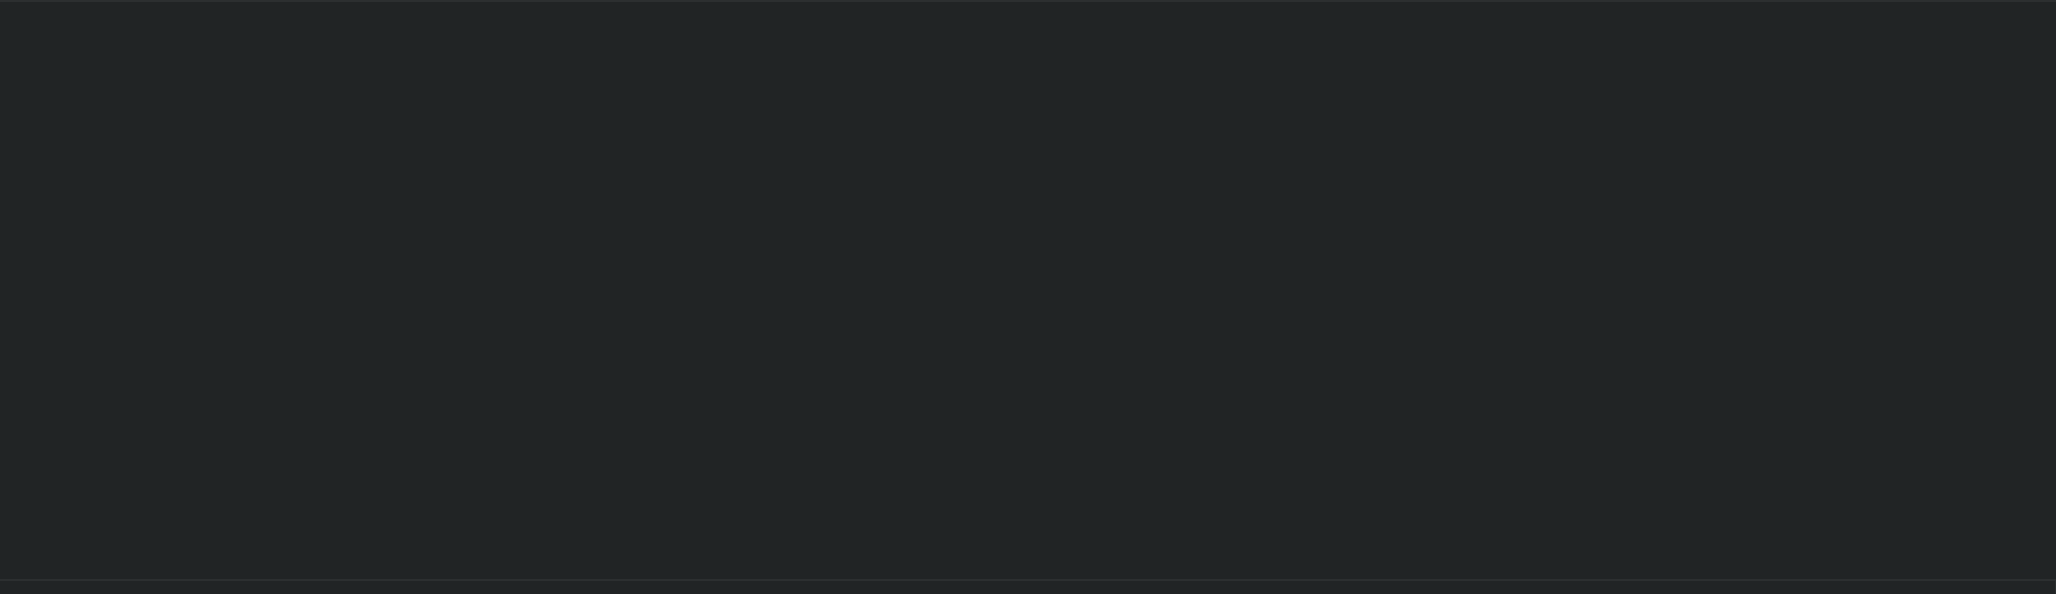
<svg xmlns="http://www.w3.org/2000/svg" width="2056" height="594">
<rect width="100%" height="100%" fill="#212425"/>
<path fill="#2c2f30" d="M0 0h2056v2H0z"/>
<path fill="#2c2f30" d="M0 579h2056v2H0z"/>
<path fill="#2c2f30" d="M2055 581h1v13H2055z"/>
</svg>
